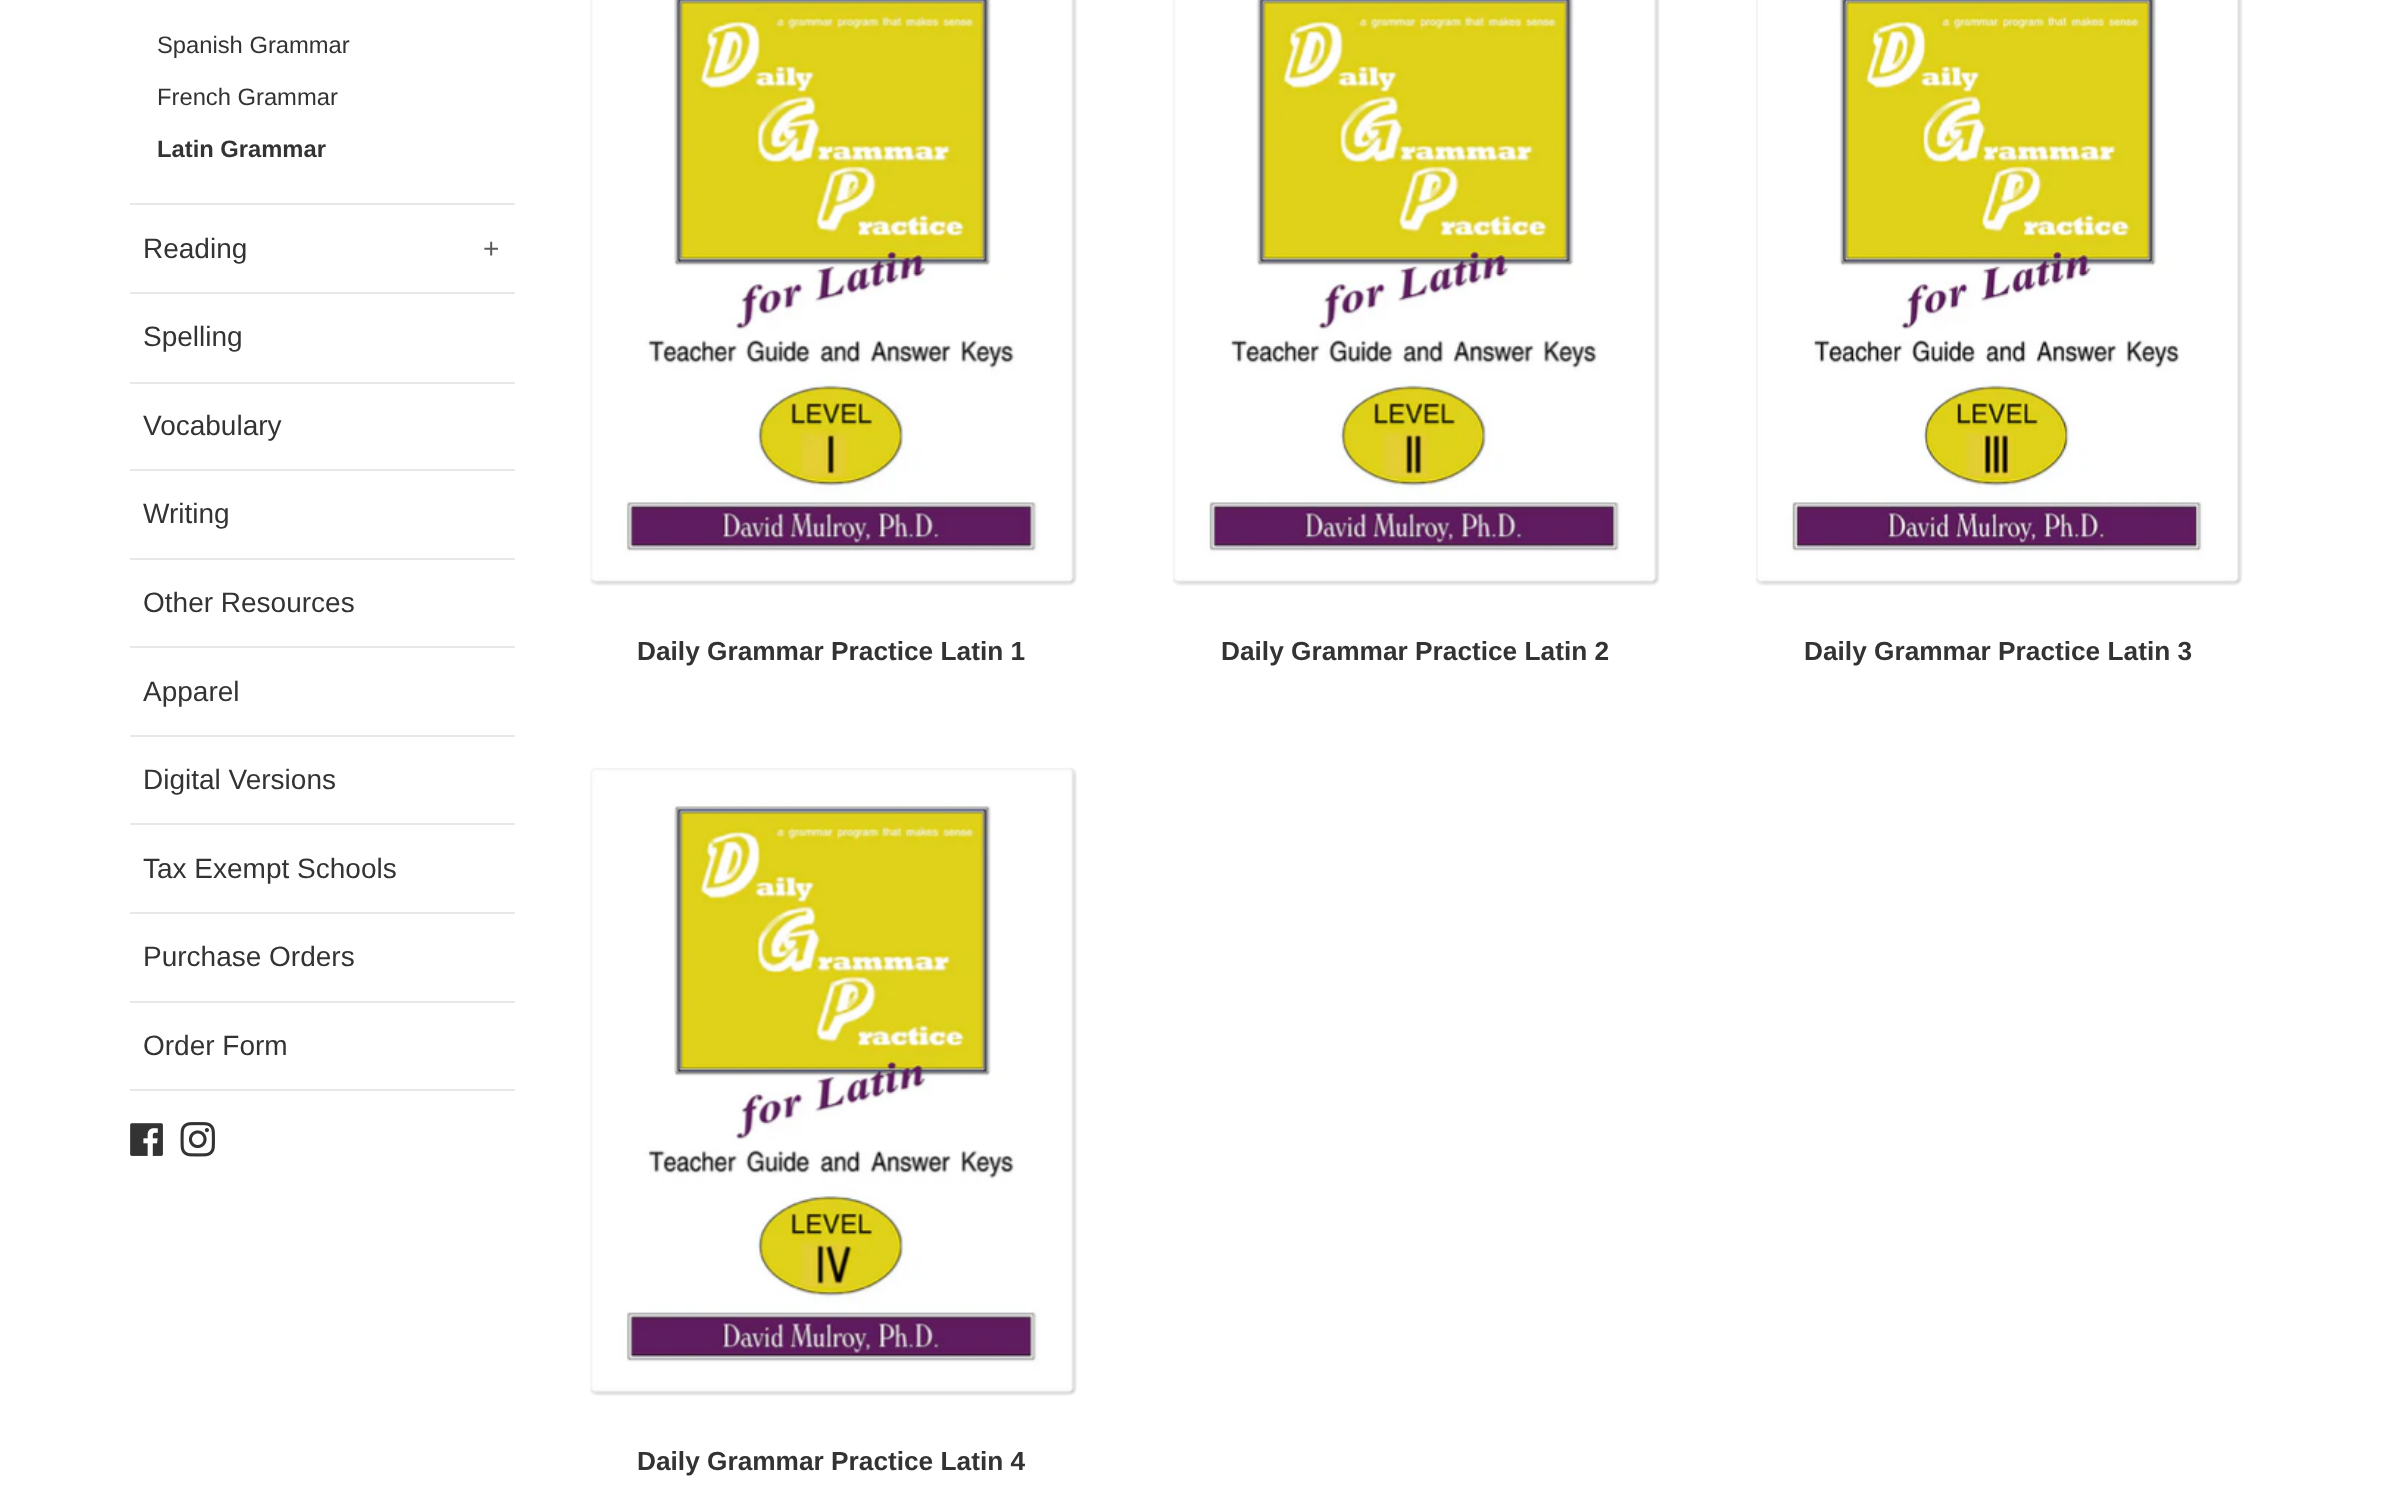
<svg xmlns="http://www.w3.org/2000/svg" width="2391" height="1511">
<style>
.a{font:23.75px Liberation Sans;fill:#333}
.b{font:bold 23.75px Liberation Sans;fill:#333}
.c{font:28px Liberation Sans;fill:#333}
.d{font:28px Liberation Sans;fill:#5c5c5c}
.e{font:bold 26.25px Liberation Sans;fill:#333}
</style>
<rect width="100%" height="100%" fill="#fff"/>
<path fill="#e8e8e8" d="M130 203h385v2H130z"/>
<path fill="#e8e8e8" d="M130 292h385v2H130z"/>
<path fill="#e8e8e8" d="M130 382h385v2H130z"/>
<path fill="#e8e8e8" d="M130 469h385v2H130z"/>
<path fill="#e8e8e8" d="M130 558h385v2H130z"/>
<path fill="#e8e8e8" d="M130 646h385v2H130z"/>
<path fill="#e8e8e8" d="M130 735h385v2H130z"/>
<path fill="#e8e8e8" d="M130 823h385v2H130z"/>
<path fill="#e8e8e8" d="M130 912h385v2H130z"/>
<path fill="#e8e8e8" d="M130 1001h385v2H130z"/>
<path fill="#e8e8e8" d="M130 1089h385v2H130z"/>
<image href="1.png" x="130" y="1123" width="33" height="33"/>
<image href="2.png" x="180" y="1122" width="35" height="35"/>
<image href="3.png" x="590" y="0" width="487" height="586"/>
<image href="4.png" x="1172" y="0" width="488" height="586"/>
<image href="5.png" x="1755" y="0" width="488" height="586"/>
<image href="6.png" x="590" y="767" width="487" height="629"/>
<text class="a" x="157" y="53">Spanish Grammar</text>
<text class="a" x="157" y="105">French Grammar</text>
<text class="b" x="157" y="157">Latin Grammar</text>
<text class="c" x="143" y="258">Reading</text>
<text class="d" x="483" y="258">+</text>
<text class="c" x="143" y="346">Spelling</text>
<text class="c" x="143" y="435">Vocabulary</text>
<text class="c" x="143" y="523">Writing</text>
<text class="c" x="143" y="612">Other Resources</text>
<text class="c" x="143" y="701">Apparel</text>
<text class="c" x="143" y="789">Digital Versions</text>
<text class="c" x="143" y="878">Tax Exempt Schools</text>
<text class="c" x="143" y="966">Purchase Orders</text>
<text class="c" x="143" y="1055">Order Form</text>
<text class="e" x="637" y="660">Daily Grammar Practice Latin 1</text>
<text class="e" x="1221" y="660">Daily Grammar Practice Latin 2</text>
<text class="e" x="1804" y="660">Daily Grammar Practice Latin 3</text>
<text class="e" x="637" y="1470">Daily Grammar Practice Latin 4</text>
</svg>
